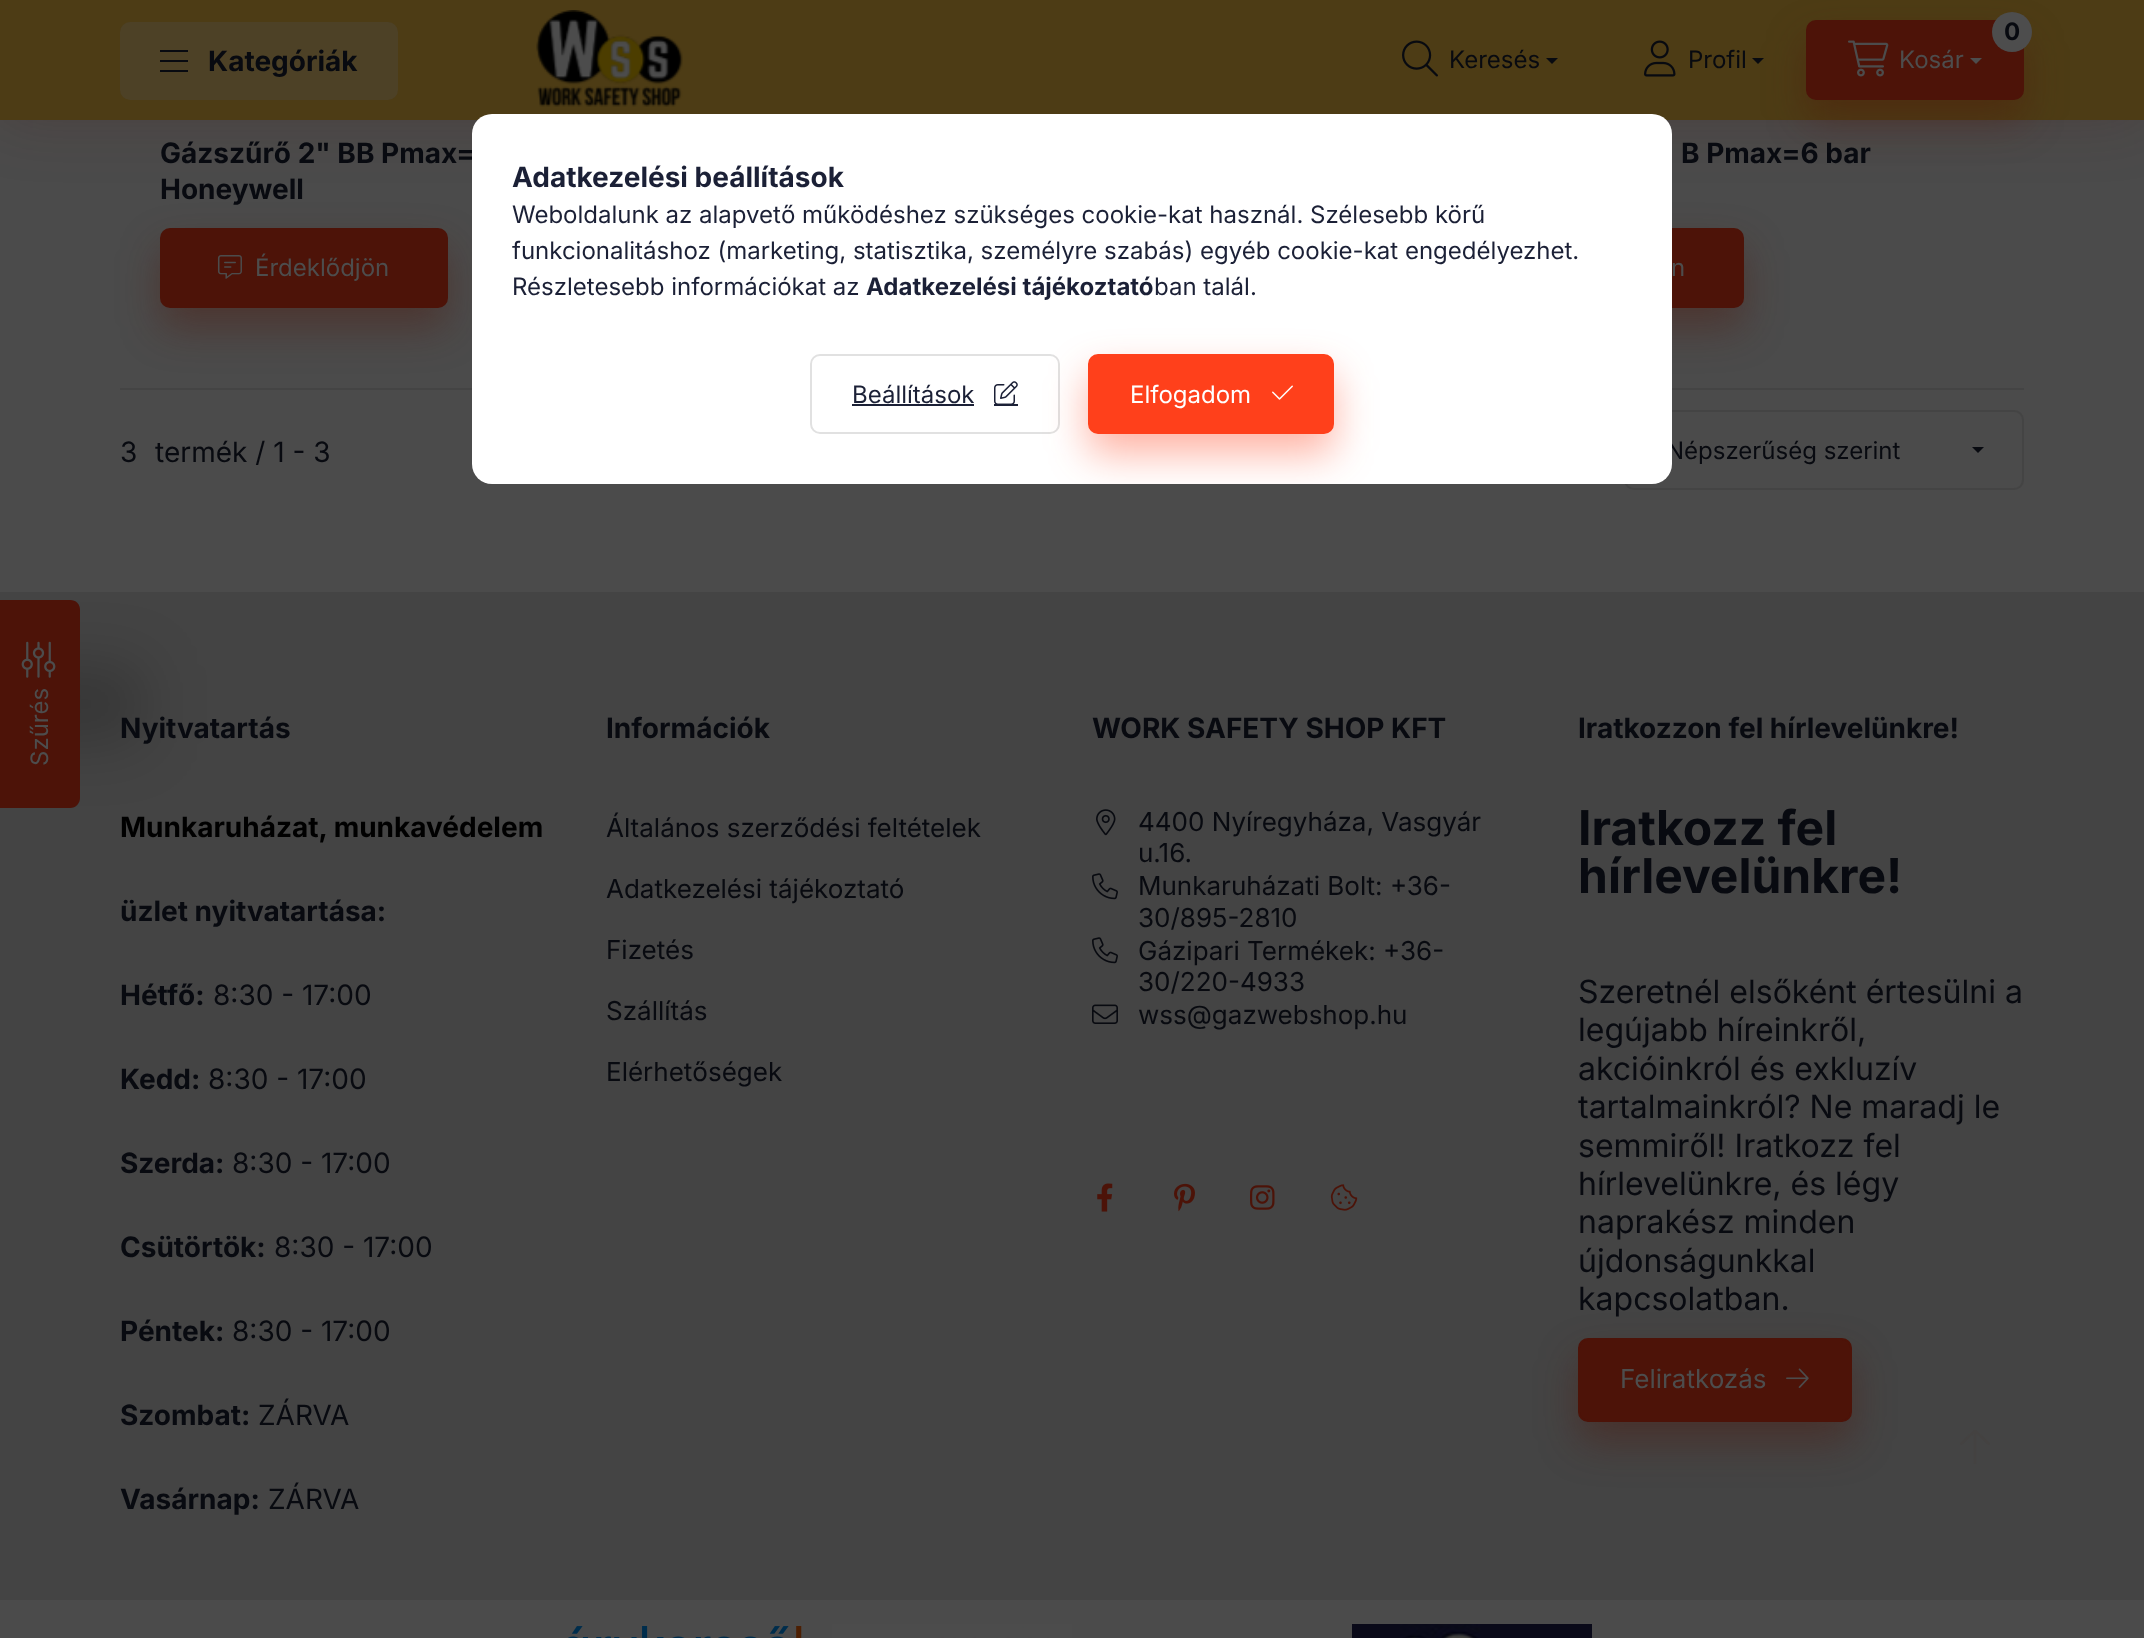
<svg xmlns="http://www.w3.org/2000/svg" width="2144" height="1638">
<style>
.a{font:bold 28px Inter;fill:#080a10}
.b{font:24px Inter;fill:#080a10}
.c{font:bold 24px Inter;fill:#080a10}
.d{font:24px Inter;fill:#4d4d4d}
.e{font:28px Inter;fill:#080a10}
.f{font:bold 28px Inter;fill:#000}
.g{font:26px Inter;fill:#080a10}
.h{font:bold 48px Inter;fill:#080a10}
.i{font:32px Inter;fill:#080a10}
.j{font:26px Inter;fill:#4d4d4d}
.k{font:bold 28px Inter;fill:#1b2036}
.l{font:24px Inter;fill:#1b2036}
.m{font:bold 24px Inter;fill:#1b2036}
.n{font:24px Inter;fill:#fff}
</style>
<defs>
<clipPath id="clip1"><rect x="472" y="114" width="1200" height="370" rx="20"/></clipPath>
</defs>
<rect width="100%" height="100%" fill="#4b4b4b"/>
<path fill="#4d130833" filter="blur(30px)" d="M0 0h2144v120H0z"/>
<path fill="#4d3c15" d="M0 0h2144v120H0z"/>
<rect fill="#4d4126" x="120" y="22" width="278" height="78" rx="10"/>
<path fill="#080a10" d="M160 50h28v2H160z"/>
<path fill="#080a10" d="M160 60h28v2H160z"/>
<path fill="#080a10" d="M160 70h28v2H160z"/>
<image href="1.png" x="536" y="10" width="147" height="97"/>
<image href="2.png" x="1402" y="40" width="36" height="37"/>
<path fill="#080a10" d="M1546 58h12l-6 6z"/>
<image href="3.png" x="1644" y="40" width="32" height="37"/>
<rect fill="#4d130866" filter="blur(20px)" x="1806" y="40" width="218" height="80" rx="10"/>
<path fill="#080a10" d="M1752 58h12l-6 6z"/>
<rect fill="#4d1308" x="1806" y="20" width="218" height="80" rx="10"/>
<circle fill="#4d4d4d" cx="2012" cy="32" r="20"/>
<image href="4.png" x="1848" y="40" width="41" height="37"/>
<path fill="#4d4d4d" d="M1970 58h12l-6 6z"/>
<path fill="#444" d="M120 388h1904v2H120z"/>
<rect fill="#4d130866" filter="blur(20px)" x="160" y="248" width="288" height="80" rx="10"/>
<rect fill="#4d1308" x="160" y="228" width="288" height="80" rx="10"/>
<image href="5.png" x="217" y="255" width="25" height="24"/>
<rect fill="#4d130866" filter="blur(20px)" x="1456" y="248" width="288" height="80" rx="10"/>
<rect fill="#4d1308" x="1456" y="228" width="288" height="80" rx="10"/>
<rect fill="none" stroke="#444" stroke-width="2" x="1625" y="411" width="398" height="78" rx="9"/>
<path fill="#080a10" d="M1972 447h12l-6 6z"/>
<path fill="#444" d="M0 592h2144v1008H0z"/>
<rect fill="#00000033" filter="blur(30px)" x="-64" y="664" width="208" height="80" rx="10"/>
<path fill="#4d1308" d="M0 808v-208h70c6 0 10 4 10 10v188c0 5-4 10-10 10z"/>
<image href="6.png" x="21" y="641" width="35" height="37"/>
<image href="7.png" x="1096" y="809" width="20" height="27"/>
<image href="8.png" x="1092" y="873" width="26" height="27"/>
<image href="8.png" x="1092" y="937" width="26" height="27"/>
<image href="9.png" x="1092" y="1004" width="26" height="20"/>
<image href="10.png" x="1097" y="1183" width="16" height="29"/>
<image href="11.png" x="1174" y="1183" width="21" height="29"/>
<image href="12.png" x="1250" y="1185" width="25" height="25"/>
<image href="13.png" x="1330" y="1184" width="28" height="27"/>
<rect fill="#4d130866" filter="blur(20px)" x="1578" y="1358" width="274" height="84" rx="10"/>
<rect fill="#4d1308" stroke="#4d1308" stroke-width="2" x="1579" y="1339" width="272" height="82" rx="9"/>
<image href="14.png" x="1786" y="1368" width="23" height="20"/>
<image href="15.png" x="568" y="1626" width="234" height="12"/>
<image href="16.png" x="832" y="1624" width="240" height="14"/>
<image href="17.png" x="1352" y="1624" width="240" height="14"/>
<image href="20.png" x="1960" y="1430" width="30" height="34"/>
<text class="a" x="208" y="71">Kategóriák</text>
<text class="b" x="1449" y="68">Keresés</text>
<text class="b" x="1688" y="68">Profil</text>
<text class="c" x="2004" y="40">0</text>
<text class="d" x="1899" y="68">Kosár</text>
<text class="a" x="160" y="163">Gázszűrő 2" BB Pmax=</text>
<text class="a" x="160" y="199">Honeywell</text>
<text class="d" x="255" y="276">Érdeklődjön</text>
<text class="a" x="1681" y="163">B Pmax=6 bar</text>
<text class="d" x="1671" y="276">n</text>
<text class="e" x="120" y="462">3</text>
<text class="e" x="155" y="462">termék / 1 - 3</text>
<text class="b" x="1666" y="459">Népszerűség szerint</text>
<text class="d" x="48" y="766" transform="rotate(-90 48 766)">Szűrés</text>
<text class="a" x="120" y="738">Nyitvatartás</text>
<text class="f" x="120" y="837">Munkaruházat, munkavédelem</text>
<text class="a" x="120" y="921">üzlet nyitvatartása:</text>
<text class="a" x="120" y="1005">Hétfő:</text>
<text class="e" x="213" y="1005">8:30 - 17:00</text>
<text class="a" x="120" y="1089">Kedd:</text>
<text class="e" x="208" y="1089">8:30 - 17:00</text>
<text class="a" x="120" y="1173">Szerda:</text>
<text class="e" x="232" y="1173">8:30 - 17:00</text>
<text class="a" x="120" y="1257">Csütörtök:</text>
<text class="e" x="274" y="1257">8:30 - 17:00</text>
<text class="a" x="120" y="1341">Péntek:</text>
<text class="e" x="232" y="1341">8:30 - 17:00</text>
<text class="a" x="120" y="1425">Szombat:</text>
<text class="e" x="258" y="1425">ZÁRVA</text>
<text class="a" x="120" y="1509">Vasárnap:</text>
<text class="e" x="268" y="1509">ZÁRVA</text>
<text class="a" x="606" y="738">Információk</text>
<text class="g" x="606" y="837">Általános szerződési feltételek</text>
<text class="g" x="606" y="898">Adatkezelési tájékoztató</text>
<text class="g" x="606" y="959">Fizetés</text>
<text class="g" x="606" y="1020">Szállítás</text>
<text class="g" x="606" y="1081">Elérhetőségek</text>
<text class="a" x="1092" y="738">WORK SAFETY SHOP KFT</text>
<text class="g" x="1138" y="831">4400 Nyíregyháza, Vasgyár</text>
<text class="g" x="1138" y="862">u.16.</text>
<text class="g" x="1138" y="895">Munkaruházati Bolt: +36-</text>
<text class="g" x="1138" y="927">30/895-2810</text>
<text class="g" x="1138" y="960">Gázipari Termékek: +36-</text>
<text class="g" x="1138" y="991">30/220-4933</text>
<text class="g" x="1138" y="1024">wss@gazwebshop.hu</text>
<text class="a" x="1578" y="738">Iratkozzon fel hírlevelünkre!</text>
<text class="h" x="1578" y="845">Iratkozz fel</text>
<text class="h" x="1578" y="893">hírlevelünkre!</text>
<text class="i" x="1578" y="1003">Szeretnél elsőként értesülni a</text>
<text class="i" x="1578" y="1041">legújabb híreinkről,</text>
<text class="i" x="1578" y="1080">akcióinkról és exkluzív</text>
<text class="i" x="1578" y="1118">tartalmainkról? Ne maradj le</text>
<text class="i" x="1578" y="1157">semmiről! Iratkozz fel</text>
<text class="i" x="1578" y="1195">hírlevelünkre, és légy</text>
<text class="i" x="1578" y="1233">naprakész minden</text>
<text class="i" x="1578" y="1272">újdonságunkkal</text>
<text class="i" x="1578" y="1310">kapcsolatban.</text>
<text class="j" x="1620" y="1388">Feliratkozás</text>
<rect fill="#fff" x="472" y="114" width="1200" height="370" rx="20"/>
<text class="k" x="512" y="187">Adatkezelési beállítások</text>
<text class="l" x="512" y="223">Weboldalunk az alapvető működéshez szükséges cookie-kat használ. Szélesebb körű</text>
<text class="l" x="512" y="259">funkcionalitáshoz (marketing, statisztika, személyre szabás) egyéb cookie-kat engedélyezhet.</text>
<text class="l" x="512" y="295">Részletesebb információkat az</text>
<text class="m" x="866" y="295">Adatkezelési tájékoztató</text>
<text class="l" x="1154" y="295">ban talál.</text>
<rect fill="none" stroke="#e1e1e1" stroke-width="2" x="811" y="355" width="248" height="78" rx="9"/>
<text class="l" x="852" y="403">Beállítások</text>
<path fill="#1b2036" d="M852 404h122v2H852z"/>
<image href="18.png" x="994" y="381" width="24" height="23"/>
<path fill="#1b2036" d="M994 404h24v2H994z"/>
<g clip-path="url(#clip1)">
<rect fill="#ff401b66" filter="blur(20px)" x="1088" y="374" width="246" height="80" rx="10"/>
</g>
<rect fill="#ff401b" stroke="#ff401b" stroke-width="2" x="1089" y="355" width="244" height="78" rx="9"/>
<text class="n" x="1130" y="403">Elfogadom</text>
<image href="19.png" x="1272" y="385" width="21" height="15"/>
</svg>
